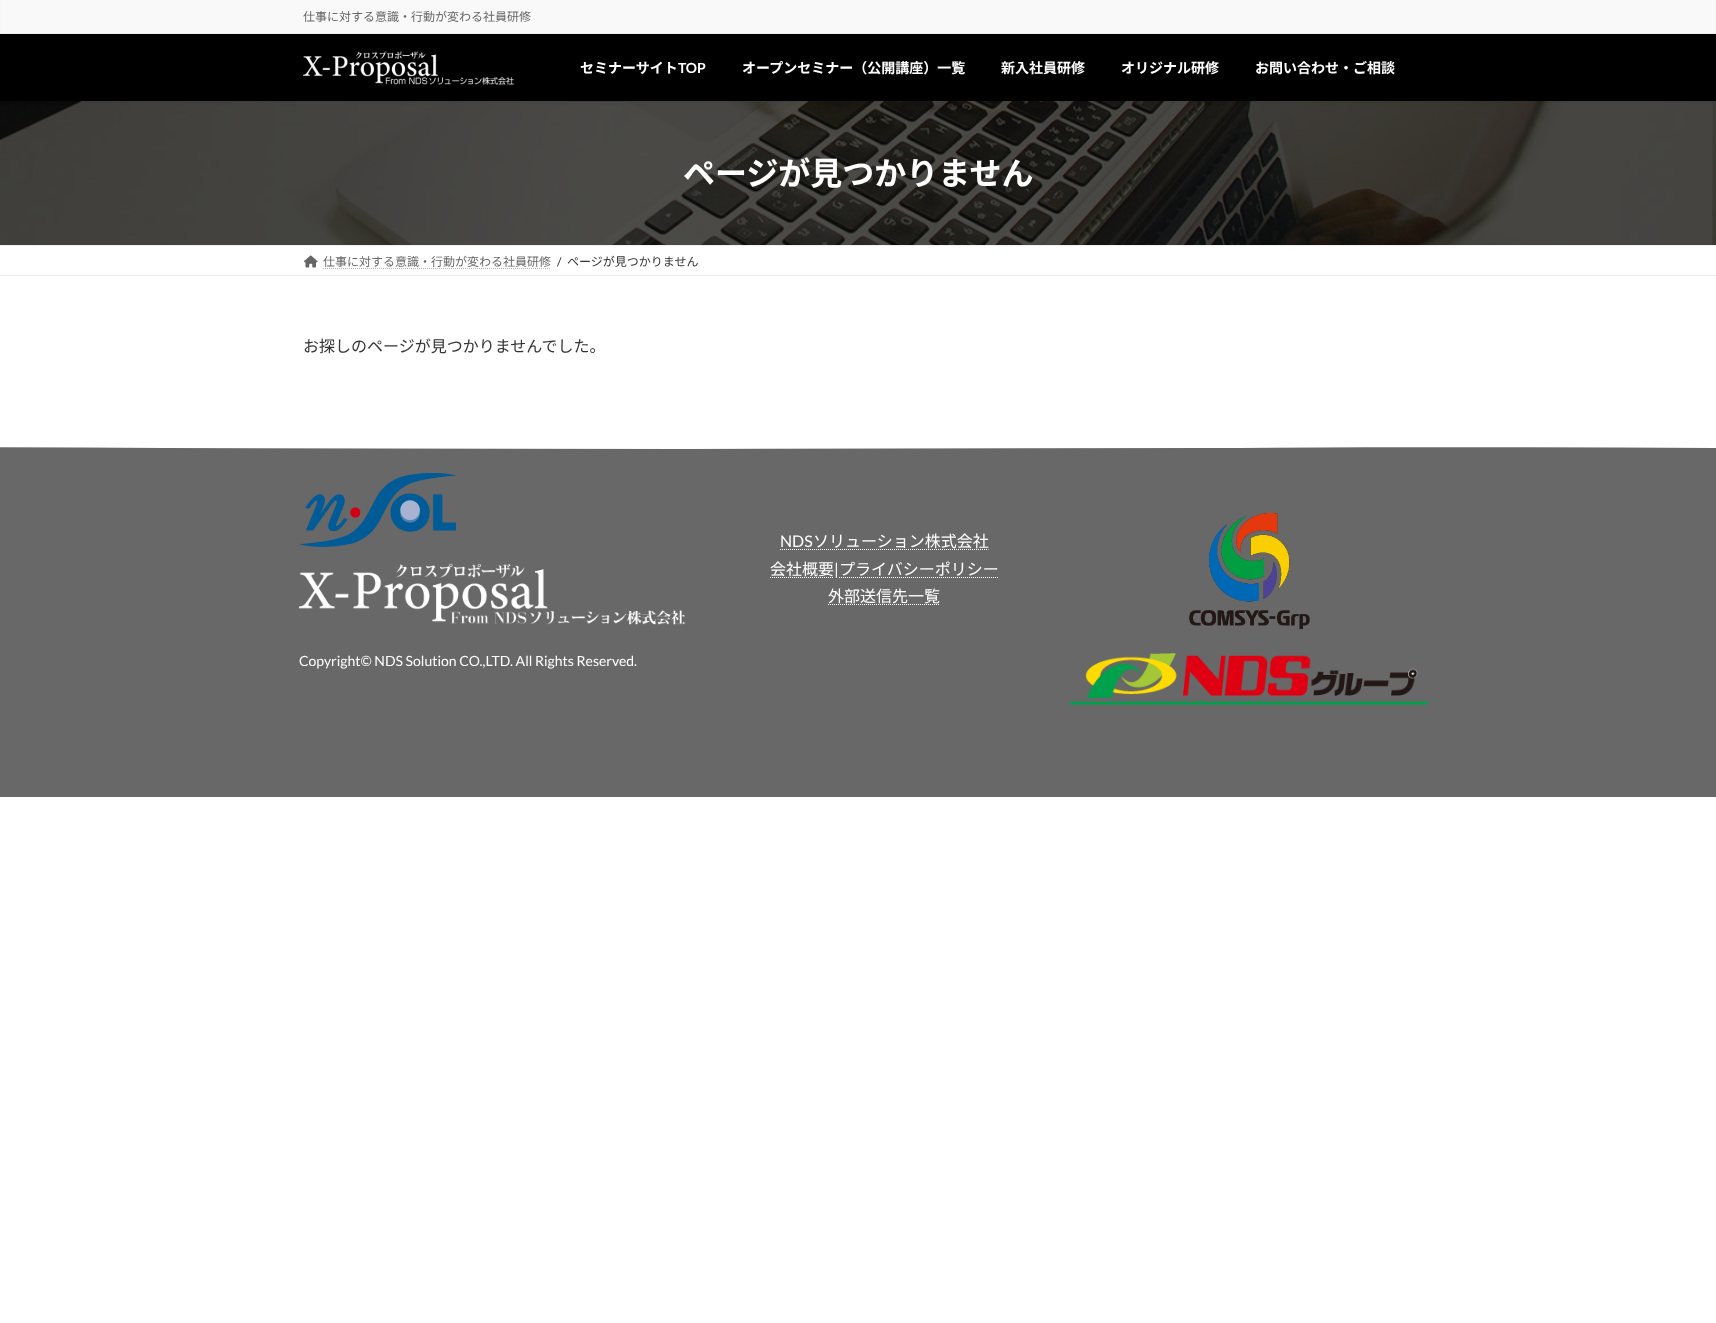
<svg xmlns="http://www.w3.org/2000/svg" width="1716" height="1323">
<style>
.a{font:12px Noto Sans JP;fill:#666}
.b{font:bold 14px Noto Sans JP;fill:#fff}
.c{font:bold 14px Lato;fill:#fff}
.d{font:bold 32px Noto Sans JP;fill:#fff}
.e{font:12px Lato;fill:#333}
.f{font:12px Noto Sans JP;fill:#333}
.g{font:16px Noto Sans JP;fill:#333}
.h{font:16px Lato;fill:#fff}
.i{font:16px Noto Sans JP;fill:#fff}
.j{font:14px Lato;fill:#fff}
</style>
<rect width="100%" height="100%" fill="#fff"/>
<image href="2.png" x="0" y="101" width="1716" height="144"/>
<path fill="#0000000d" filter="blur(1.5px)" d="M0 -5h1716v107H0z"/>
<path fill="#000" d="M0 34h1716v67H0z"/>
<path fill="#f9f9f9" d="M1 0h1714v33H1z"/>
<path fill="#efefef" d="M0 33h1716v1H0z"/>
<image href="1.png" x="303" y="51" width="211" height="34"/>
<path fill="#f0f0f0" d="M0 245h1716v1H0z"/>
<path fill="#f0f0f0" d="M0 275h1716v1H0z"/>
<image href="3.png" x="304" y="255" width="14" height="13"/>
<path fill="none" stroke="#b3b3b3" stroke-dasharray="1 1" d="M323 268.5h228"/>
<path fill="#686868" d="M0 447h1716v350H0z"/>
<path fill="#fff" d="M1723 448c-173-1-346-1-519 0l-519 1l-519-1c-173-1-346-1-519 0v-1h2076z"/>
<path fill="none" stroke="#fff" stroke-dasharray="1 1" d="M780 549.5h208.5"/>
<path fill="none" stroke="#fff" stroke-dasharray="1 1" d="M770 577.5h64"/>
<path fill="none" stroke="#fff" stroke-dasharray="1 1" d="M839 577.5h159.5"/>
<path fill="none" stroke="#fff" stroke-dasharray="1 1" d="M828 604.5h112"/>
<image href="4.png" x="1189" y="513" width="121" height="116"/>
<image href="5.png" x="1070" y="653" width="358" height="52"/>
<image href="6.png" x="299" y="473" width="157" height="74"/>
<image href="7.png" x="299" y="563" width="387" height="62"/>
<text class="a" x="303" y="21">仕事に対する意識・行動が変わる社員研修</text>
<text class="b" x="580" y="73">セミナーサイト</text>
<text class="c" x="678" y="73">TOP</text>
<text class="b" x="742" y="73">オープンセミナー（公開講座）一覧</text>
<text class="b" x="1001" y="73">新入社員研修</text>
<text class="b" x="1121" y="73">オリジナル研修</text>
<text class="b" x="1255" y="73">お問い合わせ・ご相談</text>
<text class="d" x="683" y="185">ページが見つかりません</text>
<text class="a" x="323" y="266">仕事に対する意識・行動が変わる社員研修</text>
<text class="e" x="557" y="266">/</text>
<text class="f" x="567" y="266">ページが見つかりません</text>
<text class="g" x="303" y="352">お探しのページが見つかりませんでした。</text>
<text class="h" x="780" y="547">NDS</text>
<text class="i" x="813" y="547">ソリューション株式会社</text>
<text class="i" x="770" y="575">会社概要</text>
<text class="h" x="834" y="575">|</text>
<text class="i" x="839" y="575">プライバシーポリシー</text>
<text class="i" x="828" y="602">外部送信先一覧</text>
<text class="j" x="299" y="666">Copyright© NDS Solution CO.,LTD. All Rights Reserved.</text>
</svg>
